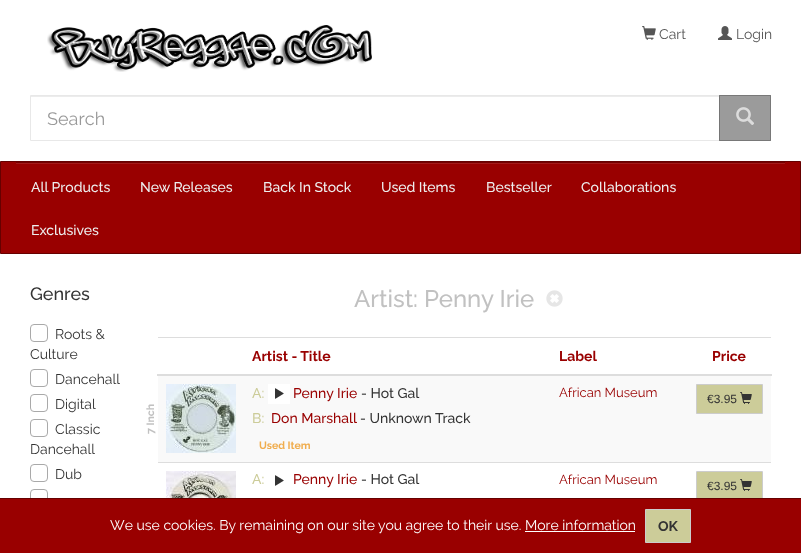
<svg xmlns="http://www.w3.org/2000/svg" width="801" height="553">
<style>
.a{font:14px Raleway;fill:#555}
.b{font:18px Raleway;fill:#999}
.c{font:500 14px Raleway;fill:#eee}
.d{font:500 18px Raleway;fill:#333}
.e{font:14px Raleway;fill:#333}
.f{font:500 24px Raleway;fill:#c1c1c1}
.g{font:bold 14px Raleway;fill:#900}
.h{font:500 14px Raleway;fill:#cc9}
.i{font:500 14px Raleway;fill:#900}
.j{font:500 14px Raleway;fill:#333}
.k{font:bold 10.5px Raleway;fill:#f0ad4e}
.l{font:13px Raleway;fill:#900}
.m{font:12px Liberation Sans;fill:#333}
.n{font:bold 10.5px Raleway;fill:#c1c1c1}
.o{font:14px Raleway;fill:#fff}
.p{font:bold 14px Raleway;fill:#333}
</style>
<rect width="100%" height="100%" fill="#fff"/>
<image href="1.png" x="47" y="25" width="325" height="47"/>
<image href="2.png" x="642" y="26" width="14" height="14"/>
<image href="3.png" x="718" y="26" width="14" height="14"/>
<path fill="#ececec" d="M31 96h688v1H31z"/>
<path fill="none" stroke="#e8e8e8" d="M30.5 95.5h689v45H30.5z"/>
<path fill="#666666a6" d="M719 95h52v46H719z"/>
<path fill="none" stroke="#666666a6" d="M719.5 95.5h51v45H719.5z"/>
<image href="4.png" x="736" y="107" width="18" height="18"/>
<path fill="#900" stroke="#600" d="M0.5 161.5h800v92H0.5z"/>
<path fill="#a31a1a" d="M16 163h769v1H16z"/>
<path fill="#750000" d="M16 162h769v1H16z"/>
<rect fill="none" stroke="#a9a9a9" x="30.5" y="324.5" width="17" height="17" rx="3.5"/>
<rect fill="none" stroke="#a9a9a9" x="30.5" y="369.5" width="17" height="17" rx="3.5"/>
<rect fill="none" stroke="#a9a9a9" x="30.5" y="394.5" width="17" height="17" rx="3.5"/>
<rect fill="none" stroke="#a9a9a9" x="30.5" y="419.5" width="17" height="17" rx="3.5"/>
<rect fill="none" stroke="#a9a9a9" x="30.5" y="464.5" width="17" height="17" rx="3.5"/>
<rect fill="none" stroke="#a9a9a9" x="30.5" y="489.5" width="17" height="17" rx="3.5"/>
<image href="5.png" x="546" y="290" width="17" height="17"/>
<path fill="#ddd" d="M158 337h613v1H158z"/>
<path fill="#ddd" d="M157 374h615v2H157z"/>
<path fill="#f9f9f9" d="M158 376h613v86H158z"/>
<path fill="#fff" d="M268 384h22v20H268z"/>
<image href="6.png" x="275" y="388" width="9" height="11"/>
<path fill="#cc9" stroke="#ccc" d="M696.5 384.5h66v29H696.5z"/>
<image href="7.png" x="740" y="392" width="12" height="12"/>
<image href="8.png" x="166" y="384" width="70" height="69"/>
<image href="9.png" x="166" y="471" width="70" height="27"/>
<image href="6.png" x="275" y="475" width="9" height="11"/>
<path fill="#ddd" d="M158 462h613v1H158z"/>
<path fill="#cc9" d="M697 472h65v26H697z"/>
<path fill="none" stroke="#ccc" d="M696.5 471.5h66v29H696.5z"/>
<image href="7.png" x="740" y="479" width="12" height="12"/>
<path fill="#900" d="M0 499h801v54H0z"/>
<path fill="#600" d="M0 498h801v1H0z"/>
<path fill="#cc9" stroke="#ccc" d="M645.5 509.5h45v33H645.5z"/>
<path fill="#fff" d="M525 531h110v1H525z"/>
<text class="a" x="659" y="39">Cart</text>
<text class="a" x="736" y="39">Login</text>
<text class="b" x="47" y="125">Search</text>
<text class="c" x="31" y="192">All Products</text>
<text class="c" x="140" y="192">New Releases</text>
<text class="c" x="263" y="192">Back In Stock</text>
<text class="c" x="381" y="192">Used Items</text>
<text class="c" x="486" y="192">Bestseller</text>
<text class="c" x="581" y="192">Collaborations</text>
<text class="c" x="31" y="235">Exclusives</text>
<text class="d" x="30" y="300">Genres</text>
<text class="e" x="55" y="339">Roots &amp;</text>
<text class="e" x="30" y="359">Culture</text>
<text class="e" x="55" y="384">Dancehall</text>
<text class="e" x="55" y="409">Digital</text>
<text class="e" x="55" y="434">Classic</text>
<text class="e" x="30" y="454">Dancehall</text>
<text class="e" x="55" y="479">Dub</text>
<text class="f" x="354" y="307">Artist: Penny Irie</text>
<text class="g" x="252" y="361">Artist - Title</text>
<text class="g" x="559" y="361">Label</text>
<text class="g" x="712" y="361">Price</text>
<text class="h" x="252" y="398">A:</text>
<text class="i" x="293" y="398">Penny Irie</text>
<text class="j" x="361" y="398">- Hot Gal</text>
<text class="h" x="252" y="423">B:</text>
<text class="i" x="271" y="423">Don Marshall</text>
<text class="j" x="360" y="423">- Unknown Track</text>
<text class="k" x="259" y="449">Used Item</text>
<text class="l" x="559" y="397">African Museum</text>
<text class="m" x="707" y="403">€3.95</text>
<text class="n" x="154" y="434" transform="rotate(-90 154 434)">7 Inch</text>
<text class="h" x="252" y="484">A:</text>
<text class="i" x="293" y="484">Penny Irie</text>
<text class="j" x="361" y="484">- Hot Gal</text>
<text class="l" x="559" y="484">African Museum</text>
<text class="m" x="707" y="490">€3.95</text>
<text class="o" x="110" y="530">We use cookies. By remaining on our site you agree to their use. More information</text>
<text class="p" x="658" y="531">OK</text>
</svg>
